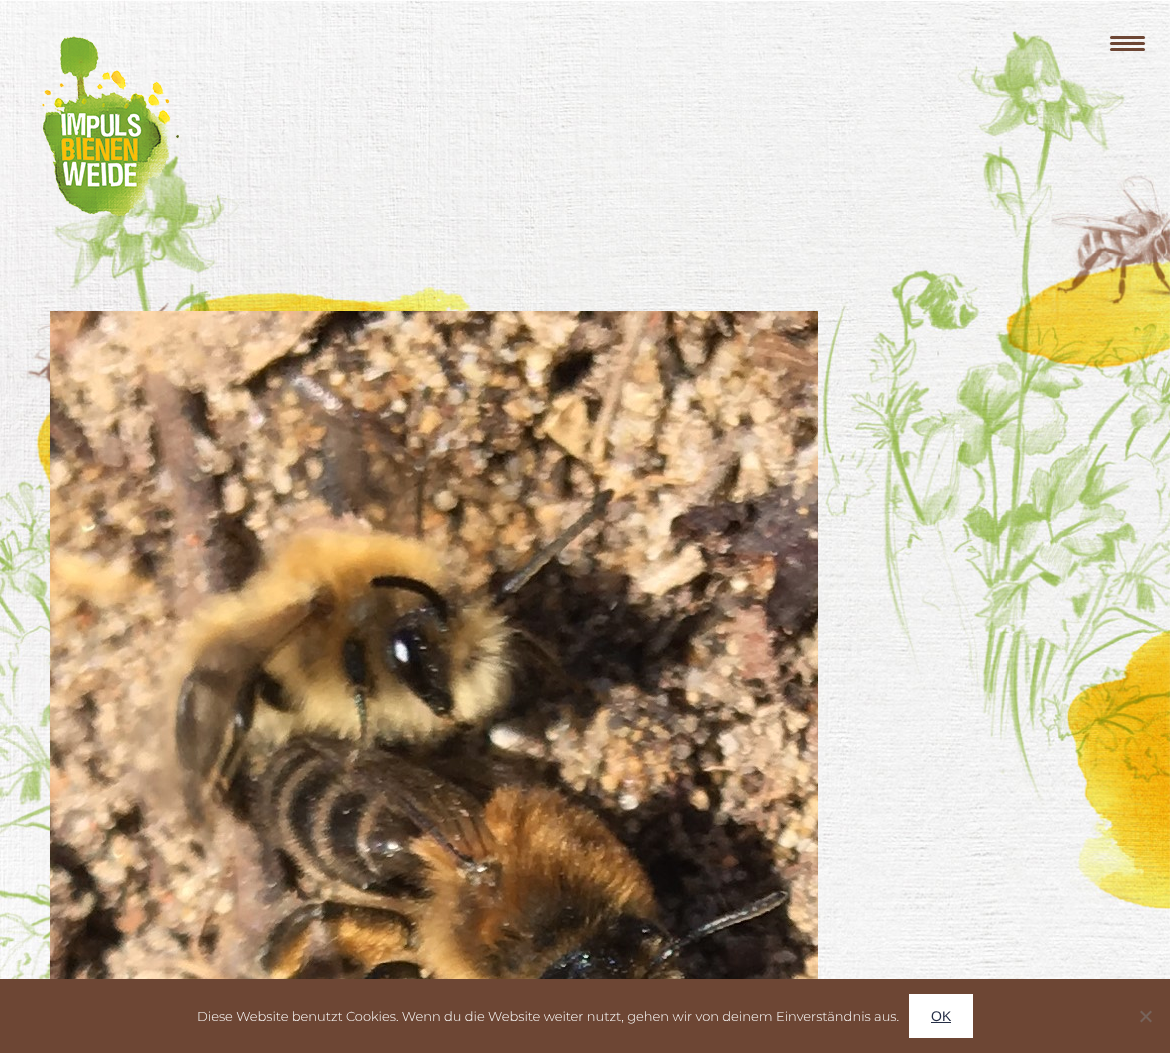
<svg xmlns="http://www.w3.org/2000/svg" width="1170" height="1053">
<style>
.a{font:300 13px Montserrat;fill:#fff}
.b{font:14px Liberation Sans;fill:#252e46}
</style>
<rect width="100%" height="100%" fill="#fff"/>
<image href="1.png" x="0" y="0" width="1170" height="979"/>
<image href="2.png" x="42" y="36" width="137" height="180"/>
<rect fill="#6d4634" x="1110" y="36" width="35" height="3" rx="1.5"/>
<rect fill="#6d4634" x="1110" y="42" width="35" height="3" rx="1.5"/>
<rect fill="#6d4634" x="1110" y="48" width="35" height="3" rx="1.5"/>
<image href="3.png" x="50" y="311" width="768" height="668"/>
<path fill="#6d4634" d="M0 979h1170v74H0z"/>
<path fill="#fff" d="M909 994h64v44H909z"/>
<path fill="#252e46" d="M931 1022h20v1H931z"/>
<path fill="#77635a" d="M1150.5 1010.5l1.5 1.5l-10.5 10.5l-1.5-1.5z"/>
<path fill="#77635a" d="M1140 1012l1.5-1.5l10.5 10.5l-1.5 1.5z"/>
<text class="a" x="197" y="1021">Diese Website benutzt Cookies. Wenn du die Website weiter nutzt, gehen wir von deinem Einverständnis aus.</text>
<text class="b" x="931" y="1021">OK</text>
</svg>
